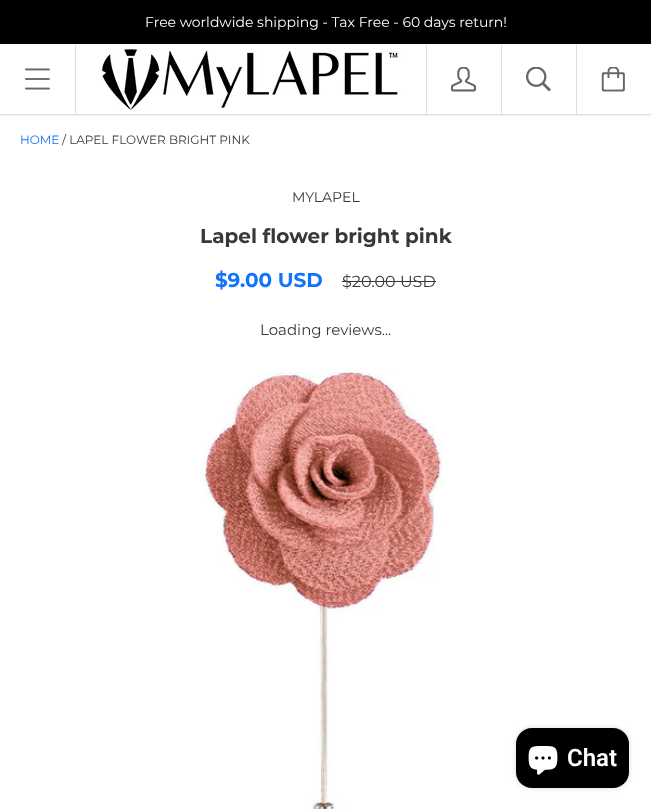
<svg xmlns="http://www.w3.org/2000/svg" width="651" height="809">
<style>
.a{font:14px Montserrat;fill:#fff}
.b{font:12px Montserrat;fill:#1473fb}
.c{font:12px Montserrat;fill:#383838}
.d{font:14px Montserrat;fill:#383838}
.e{font:bold 20px Montserrat;fill:#383838}
.f{font:bold 20px Montserrat;fill:#1473fb}
.g{font:16px Montserrat;fill:#383838}
.h{font:15px Montserrat;fill:#383838}
.i{font:600 24px Roboto;fill:#fff}
</style>
<rect width="100%" height="100%" fill="#fff"/>
<path fill="#000" d="M0 0h651v44H0z"/>
<path fill="#f5f5f5" d="M0 115h651v1H0z"/>
<path fill="#ddd" d="M0 114h651v1H0z"/>
<image href="1.png" x="25" y="68" width="25" height="22"/>
<path fill="#ddd" d="M75 44h1v70H75z"/>
<image href="2.png" x="101" y="49" width="300" height="61"/>
<path fill="#ddd" d="M426 44h1v70H426z"/>
<image href="3.png" x="451" y="67" width="25" height="25"/>
<path fill="#ddd" d="M501 44h1v70H501z"/>
<image href="4.png" x="526" y="67" width="25" height="25"/>
<path fill="#ddd" d="M576 44h1v70H576z"/>
<image href="5.png" x="601" y="67" width="24" height="25"/>
<path fill="#383838" d="M342 281h94v1H342z"/>
<image href="6.png" x="201" y="372" width="242" height="437"/>
<rect fill="#00000026" filter="blur(2.5px)" x="516" y="728" width="113" height="60" rx="16"/>
<rect fill="#000" x="516" y="728" width="113" height="60" rx="16"/>
<image href="7.png" x="528" y="746" width="30" height="29"/>
<text class="a" x="145" y="27">Free worldwide shipping - Tax Free - 60 days return!</text>
<text class="b" x="20" y="144">HOME</text>
<text class="c" x="62" y="144">/ LAPEL FLOWER BRIGHT PINK</text>
<text class="d" x="292" y="202">MYLAPEL</text>
<text class="e" x="200" y="243">Lapel flower bright pink</text>
<text class="f" x="215" y="287">$9.00 USD</text>
<text class="g" x="342" y="287">$20.00 USD</text>
<text class="h" x="260" y="335">Loading reviews...</text>
<text class="i" x="567" y="766">Chat</text>
</svg>
